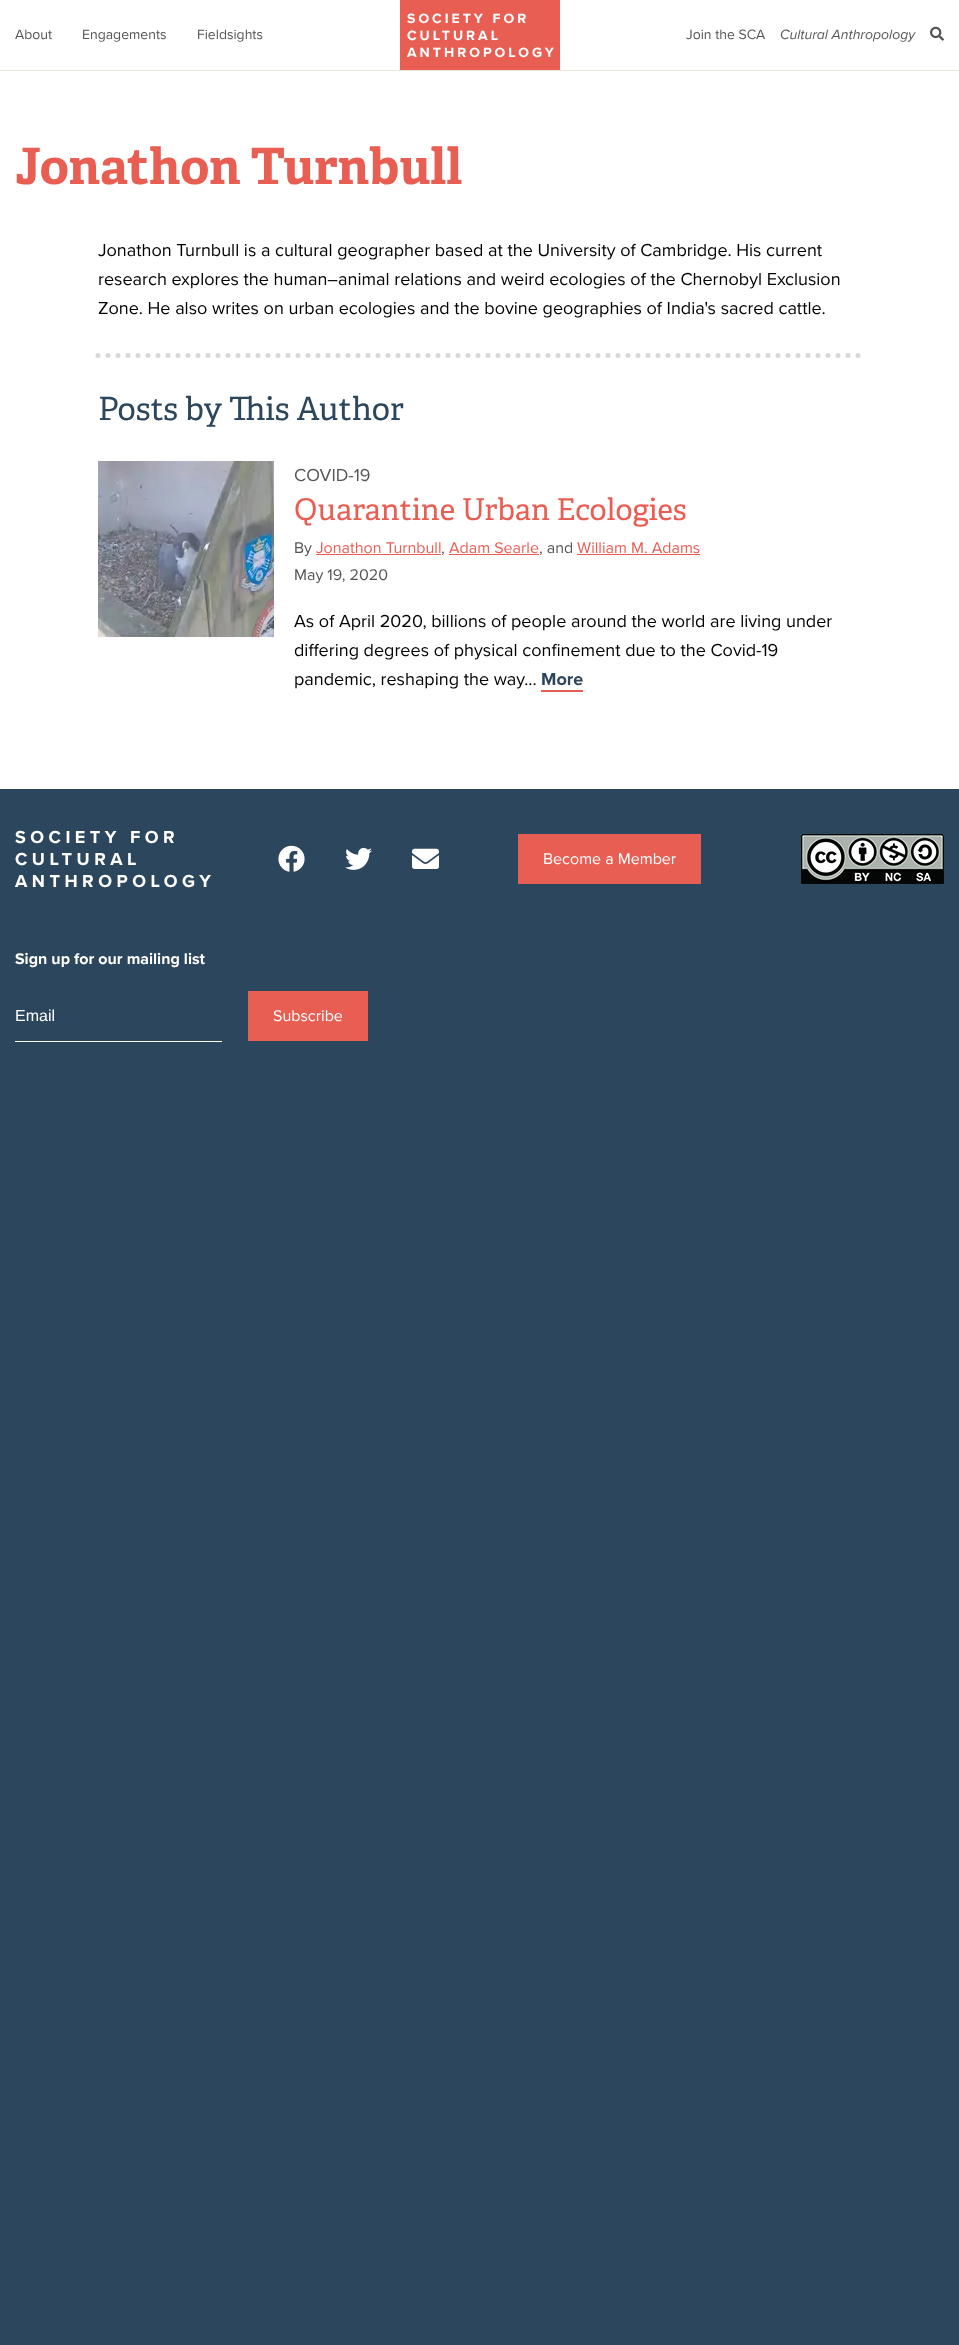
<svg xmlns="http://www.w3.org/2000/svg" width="959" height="2345">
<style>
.a{font:bold 14px Proxima Nova;letter-spacing:3px;fill:#fff}
.b{font:14px Proxima Nova;fill:#555654}
.c{font:italic 14px Proxima Nova;fill:#555654}
.d{font:bold 50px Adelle;fill:#e95e53}
.e{font:18px Proxima Nova;fill:#000}
.f{font:32px Adelle;fill:#2c465d}
.g{font:18px Proxima Nova;fill:#555654}
.h{font:30px Adelle;fill:#e95e53}
.i{font:16px Proxima Nova;fill:#555654}
.j{font:16px Proxima Nova;fill:#e95e53}
.k{font:bold 18px Proxima Nova;fill:#2c465d}
.l{font:bold 18px Proxima Nova;letter-spacing:4.5px;fill:#fff}
.m{font:16px Proxima Nova;fill:#fff}
.n{font:bold 16px Proxima Nova;fill:#fff}
.o{font:16px Liberation Sans;fill:#fff}
</style>
<rect width="100%" height="100%" fill="#2c465d"/>
<path fill="#fff" d="M0 0h959v789H0z"/>
<path fill="#ebe9d7" d="M0 70h959v1H0z"/>
<path fill="#e95e53" d="M400 0h160v70H400z"/>
<image href="1.png" x="930" y="26" width="14" height="15"/>
<path fill="none" stroke="#d8d8d8" stroke-width="5" stroke-linecap="round" stroke-dasharray="0 10" d="M98 355.5h764"/>
<image href="2.png" x="98" y="461" width="176" height="176"/>
<path fill="#e95e53" d="M316 554h125v1H316z"/>
<path fill="#e95e53" d="M449 554h90v1H449z"/>
<path fill="#e95e53" d="M577 554h123v1H577z"/>
<path fill="#e95e53" d="M541 690h42v2H541z"/>
<image href="3.png" x="278" y="845" width="27" height="27"/>
<image href="4.png" x="345" y="847" width="27" height="23"/>
<image href="5.png" x="412" y="848" width="27" height="21"/>
<path fill="#e95e53" d="M518 834h183v50H518z"/>
<image href="6.png" x="801" y="834" width="143" height="50"/>
<path fill="#fff" d="M15 1041h207v1H15z"/>
<path fill="#e95e53" d="M248 991h120v50H248z"/>
<text class="a" x="407" y="23">SOCIETY FOR</text>
<text class="a" x="407" y="40">CULTURAL</text>
<text class="a" x="407" y="57">ANTHROPOLOGY</text>
<text class="b" x="15" y="39">About</text>
<text class="b" x="82" y="39">Engagements</text>
<text class="b" x="197" y="39">Fieldsights</text>
<text class="b" x="686" y="39">Join the SCA</text>
<text class="c" x="780" y="39">Cultural Anthropology</text>
<text class="d" x="15" y="184">Jonathon Turnbull</text>
<text class="e" x="98" y="256">Jonathon Turnbull is a cultural geographer based at the University of Cambridge. His current</text>
<text class="e" x="98" y="285">research explores the human–animal relations and weird ecologies of the Chernobyl Exclusion</text>
<text class="e" x="98" y="314">Zone. He also writes on urban ecologies and the bovine geographies of India's sacred cattle.</text>
<text class="f" x="98" y="420">Posts by This Author</text>
<text class="g" x="294" y="481">COVID-19</text>
<text class="h" x="294" y="520">Quarantine Urban Ecologies</text>
<text class="i" x="294" y="553">By</text>
<text class="j" x="316" y="553">Jonathon Turnbull</text>
<text class="i" x="441" y="553">,</text>
<text class="j" x="449" y="553">Adam Searle</text>
<text class="i" x="539" y="553">, and</text>
<text class="j" x="577" y="553">William M. Adams</text>
<text class="i" x="294" y="580">May 19, 2020</text>
<text class="e" x="294" y="627">As of April 2020, billions of people around the world are living under</text>
<text class="e" x="294" y="656">differing degrees of physical confinement due to the Covid-19</text>
<text class="e" x="294" y="685">pandemic, reshaping the way...</text>
<text class="k" x="541" y="685">More</text>
<text class="l" x="15" y="843">SOCIETY FOR</text>
<text class="l" x="15" y="865">CULTURAL</text>
<text class="l" x="15" y="887">ANTHROPOLOGY</text>
<text class="m" x="543" y="864">Become a Member</text>
<text class="n" x="15" y="964">Sign up for our mailing list</text>
<text class="o" x="15" y="1021">Email</text>
<text class="m" x="273" y="1021">Subscribe</text>
</svg>
